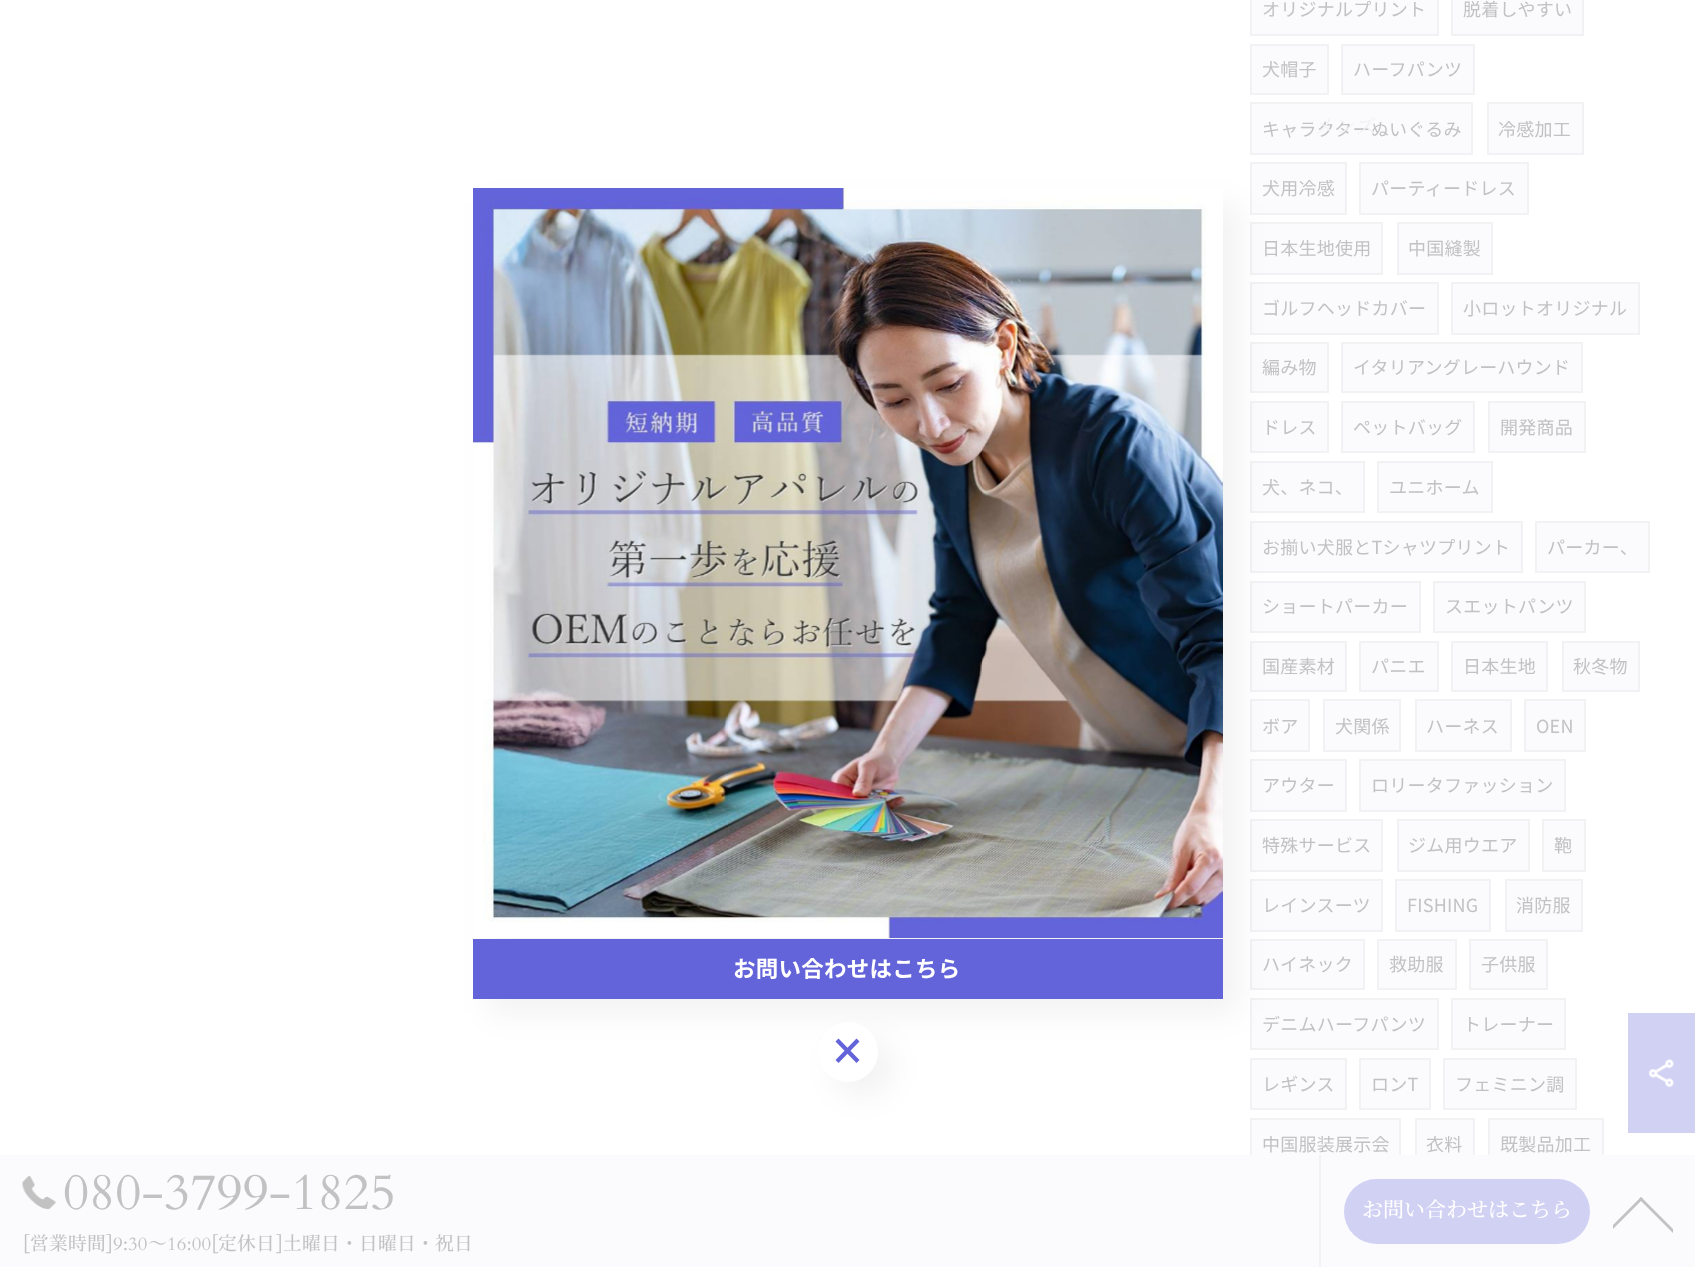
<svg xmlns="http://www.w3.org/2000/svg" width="1695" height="1267">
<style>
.a{font:18px Noto Sans JP;letter-spacing:0.25px;fill:#c2c2c2}
.b{font:21px Noto Serif JP;letter-spacing:0.25px;fill:#f2f2f5}
.c{font:bold 22.5px Noto Sans JP;letter-spacing:0.25px;fill:#fff}
.d{font:51px Cardo;fill:#c2c2c2}
.e{font:18.75px Cardo;letter-spacing:0.25px;fill:#c2c2c2}
.f{font:500 18.75px Noto Serif JP;letter-spacing:0.25px;fill:#c2c2c2}
.g{font:500 21px Noto Serif JP;fill:#fff}
</style>
<defs>
<clipPath id="clip1"><path d="M1613 1182h60v60H1613z"/></clipPath>
</defs>
<rect width="100%" height="100%" fill="#fff"/>
<path fill="#fbfbfe" stroke="#f2f2f4" stroke-width="2" d="M1251 -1h187v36H1251z"/>
<path fill="#fbfbfe" stroke="#f2f2f4" stroke-width="2" d="M1452 -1h131v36H1452z"/>
<path fill="#fbfbfe" stroke="#f2f2f4" stroke-width="2" d="M1251 45h77v49H1251z"/>
<path fill="#fbfbfe" stroke="#f2f2f4" stroke-width="2" d="M1342 45h132v49H1342z"/>
<path fill="#fbfbfe" stroke="#f2f2f4" stroke-width="2" d="M1251 103h221v51H1251z"/>
<path fill="#fbfbfe" stroke="#f2f2f4" stroke-width="2" d="M1488 103h95v51H1488z"/>
<path fill="#fbfbfe" stroke="#f2f2f4" stroke-width="2" d="M1251 163h95v51H1251z"/>
<path fill="#fbfbfe" stroke="#f2f2f4" stroke-width="2" d="M1360 163h168v51H1360z"/>
<path fill="#fbfbfe" stroke="#f2f2f4" stroke-width="2" d="M1251 223h131v51H1251z"/>
<path fill="#fbfbfe" stroke="#f2f2f4" stroke-width="2" d="M1398 223h94v51H1398z"/>
<path fill="#fbfbfe" stroke="#f2f2f4" stroke-width="2" d="M1251 283h187v51H1251z"/>
<path fill="#fbfbfe" stroke="#f2f2f4" stroke-width="2" d="M1452 283h187v51H1452z"/>
<path fill="#fbfbfe" stroke="#f2f2f4" stroke-width="2" d="M1251 343h77v49H1251z"/>
<path fill="#fbfbfe" stroke="#f2f2f4" stroke-width="2" d="M1342 343h240v49H1342z"/>
<path fill="#fbfbfe" stroke="#f2f2f4" stroke-width="2" d="M1251 402h77v50H1251z"/>
<path fill="#fbfbfe" stroke="#f2f2f4" stroke-width="2" d="M1342 402h132v50H1342z"/>
<path fill="#fbfbfe" stroke="#f2f2f4" stroke-width="2" d="M1489 402h96v50H1489z"/>
<path fill="#fbfbfe" stroke="#f2f2f4" stroke-width="2" d="M1251 462h113v50H1251z"/>
<path fill="#fbfbfe" stroke="#f2f2f4" stroke-width="2" d="M1378 462h114v50H1378z"/>
<path fill="#fbfbfe" stroke="#f2f2f4" stroke-width="2" d="M1251 522h271v50H1251z"/>
<path fill="#fbfbfe" stroke="#f2f2f4" stroke-width="2" d="M1536 522h113v50H1536z"/>
<path fill="#fbfbfe" stroke="#f2f2f4" stroke-width="2" d="M1251 582h169v50H1251z"/>
<path fill="#fbfbfe" stroke="#f2f2f4" stroke-width="2" d="M1434 582h151v50H1434z"/>
<path fill="#fbfbfe" stroke="#f2f2f4" stroke-width="2" d="M1251 642h95v49H1251z"/>
<path fill="#fbfbfe" stroke="#f2f2f4" stroke-width="2" d="M1360 642h78v49H1360z"/>
<path fill="#fbfbfe" stroke="#f2f2f4" stroke-width="2" d="M1452 642h95v49H1452z"/>
<path fill="#fbfbfe" stroke="#f2f2f4" stroke-width="2" d="M1563 642h76v49H1563z"/>
<path fill="#fbfbfe" stroke="#f2f2f4" stroke-width="2" d="M1251 700h58v51H1251z"/>
<path fill="#fbfbfe" stroke="#f2f2f4" stroke-width="2" d="M1324 700h76v51H1324z"/>
<path fill="#fbfbfe" stroke="#f2f2f4" stroke-width="2" d="M1416 700h95v51H1416z"/>
<path fill="#fbfbfe" stroke="#f2f2f4" stroke-width="2" d="M1525 700h60v51H1525z"/>
<path fill="#fbfbfe" stroke="#f2f2f4" stroke-width="2" d="M1251 760h95v51H1251z"/>
<path fill="#fbfbfe" stroke="#f2f2f4" stroke-width="2" d="M1360 760h205v51H1360z"/>
<path fill="#fbfbfe" stroke="#f2f2f4" stroke-width="2" d="M1251 820h131v51H1251z"/>
<path fill="#fbfbfe" stroke="#f2f2f4" stroke-width="2" d="M1398 820h131v51H1398z"/>
<path fill="#fbfbfe" stroke="#f2f2f4" stroke-width="2" d="M1543 820h42v51H1543z"/>
<path fill="#fbfbfe" stroke="#f2f2f4" stroke-width="2" d="M1251 880h131v51H1251z"/>
<path fill="#fbfbfe" stroke="#f2f2f4" stroke-width="2" d="M1396 880h94v51H1396z"/>
<path fill="#fbfbfe" stroke="#f2f2f4" stroke-width="2" d="M1506 880h76v51H1506z"/>
<path fill="#fbfbfe" stroke="#f2f2f4" stroke-width="2" d="M1251 940h113v49H1251z"/>
<path fill="#fbfbfe" stroke="#f2f2f4" stroke-width="2" d="M1378 940h78v49H1378z"/>
<path fill="#fbfbfe" stroke="#f2f2f4" stroke-width="2" d="M1470 940h77v49H1470z"/>
<path fill="#fbfbfe" stroke="#f2f2f4" stroke-width="2" d="M1251 999h187v50H1251z"/>
<path fill="#fbfbfe" stroke="#f2f2f4" stroke-width="2" d="M1452 999h113v50H1452z"/>
<path fill="#fbfbfe" stroke="#f2f2f4" stroke-width="2" d="M1251 1059h95v50H1251z"/>
<path fill="#fbfbfe" stroke="#f2f2f4" stroke-width="2" d="M1360 1059h70v50H1360z"/>
<path fill="#fbfbfe" stroke="#f2f2f4" stroke-width="2" d="M1444 1059h132v50H1444z"/>
<path fill="#fbfbfe" d="M1252 1120h147v35H1252z"/>
<path fill="none" stroke="#f2f2f4" stroke-width="2" d="M1251 1119h149v50H1251z"/>
<path fill="#fbfbfe" d="M1417 1120h56v35H1417z"/>
<path fill="none" stroke="#f2f2f4" stroke-width="2" d="M1416 1119h58v50H1416z"/>
<path fill="#fbfbfe" d="M1490 1120h112v35H1490z"/>
<path fill="none" stroke="#f2f2f4" stroke-width="2" d="M1489 1119h114v50H1489z"/>
<path fill="#0000000d" filter="blur(15px)" d="M488 204h750v810H488z"/>
<image href="1.png" x="473" y="188" width="750" height="750"/>
<path fill="#6464da" d="M473 939h750v60H473z"/>
<rect fill="#0000000d" filter="blur(15px)" x="833" y="1037" width="60" height="60" rx="30"/>
<circle fill="#fff" cx="848" cy="1052" r="30"/>
<path fill="#6464da" d="M838.5 1038.5l21 21.5l-3 3l-21-21.5z"/>
<path fill="#6464da" d="M835.5 1060l21-21.5l3 3l-21 21.5z"/>
<path fill="#fbfbfe" d="M0 1155h1695v112H0z"/>
<path fill="#d1d1f4" d="M1628 1013h67v120H1628z"/>
<image href="2.png" x="1648" y="1059" width="26" height="29"/>
<path fill="#f2f2f4" d="M1319 1155h2v112H1319z"/>
<image href="3.png" x="22" y="1176" width="34" height="33"/>
<rect fill="#d1d1f4" x="1344" y="1179" width="246" height="65" rx="32.5"/>
<g clip-path="url(#clip1)">
<path fill="#c2c2c2" d="M1641 1197l34 34l-2 2l-34-34z"/>
<path fill="#c2c2c2" d="M1641 1197l2 2l-34 34l-2-2z"/>
</g>
<text class="a" x="1262" y="16">オリジナルプリント</text>
<text class="a" x="1463" y="16">脱着しやすい</text>
<text class="a" x="1262" y="76">犬帽子</text>
<text class="a" x="1353" y="76">ハーフパンツ</text>
<text class="a" x="1262" y="136">キャラクターぬいぐるみ</text>
<text class="a" x="1498" y="136">冷感加工</text>
<text class="a" x="1262" y="195">犬用冷感</text>
<text class="a" x="1371" y="195">パーティードレス</text>
<text class="a" x="1262" y="255">日本生地使用</text>
<text class="a" x="1408" y="255">中国縫製</text>
<text class="a" x="1262" y="315">ゴルフヘッドカバー</text>
<text class="a" x="1463" y="315">小ロットオリジナル</text>
<text class="a" x="1262" y="374">編み物</text>
<text class="a" x="1353" y="374">イタリアングレーハウンド</text>
<text class="a" x="1262" y="434">ドレス</text>
<text class="a" x="1353" y="434">ペットバッグ</text>
<text class="a" x="1500" y="434">開発商品</text>
<text class="a" x="1262" y="494">犬、ネコ、</text>
<text class="a" x="1389" y="494">ユニホーム</text>
<text class="a" x="1262" y="554">お揃い犬服とTシャツプリント</text>
<text class="a" x="1547" y="554">パーカー、</text>
<text class="a" x="1262" y="613">ショートパーカー</text>
<text class="a" x="1445" y="613">スエットパンツ</text>
<text class="a" x="1262" y="673">国産素材</text>
<text class="a" x="1371" y="673">パニエ</text>
<text class="a" x="1463" y="673">日本生地</text>
<text class="a" x="1573" y="673">秋冬物</text>
<text class="a" x="1262" y="733">ボア</text>
<text class="a" x="1335" y="733">犬関係</text>
<text class="a" x="1426" y="733">ハーネス</text>
<text class="a" x="1536" y="733">OEN</text>
<text class="a" x="1262" y="792">アウター</text>
<text class="a" x="1371" y="792">ロリータファッション</text>
<text class="a" x="1262" y="852">特殊サービス</text>
<text class="a" x="1408" y="852">ジム用ウエア</text>
<text class="a" x="1554" y="852">鞄</text>
<text class="a" x="1262" y="912">レインスーツ</text>
<text class="a" x="1407" y="912">FISHING</text>
<text class="a" x="1516" y="912">消防服</text>
<text class="a" x="1262" y="971">ハイネック</text>
<text class="a" x="1389" y="971">救助服</text>
<text class="a" x="1481" y="971">子供服</text>
<text class="a" x="1262" y="1031">デニムハーフパンツ</text>
<text class="a" x="1463" y="1031">トレーナー</text>
<text class="a" x="1262" y="1091">レギンス</text>
<text class="a" x="1371" y="1091">ロンT</text>
<text class="a" x="1455" y="1091">フェミニン調</text>
<text class="a" x="1262" y="1151">中国服装展示会</text>
<text class="a" x="1426" y="1151">衣料</text>
<text class="a" x="1500" y="1151">既製品加工</text>
<path fill="#fbfbfe" d="M1427.5 63l6.5-6.5l1 1l-6.5 6.5z"/>
<text class="b" x="1314" y="134">メンズ</text>
<text class="c" x="733" y="977">お問い合わせはこちら</text>
<text class="d" x="63" y="1209">080-3799-1825</text>
<text class="e" x="23" y="1250">[</text>
<text class="f" x="30" y="1250">営業時間</text>
<text class="e" x="106" y="1250">]9:30</text>
<text class="f" x="148" y="1250">～</text>
<text class="e" x="167" y="1250">16:00[</text>
<text class="f" x="218" y="1250">定休日</text>
<text class="e" x="276" y="1250">]</text>
<text class="f" x="283" y="1250">土曜日・日曜日・祝日</text>
<text class="g" x="1362" y="1217">お問い合わせはこちら</text>
</svg>
